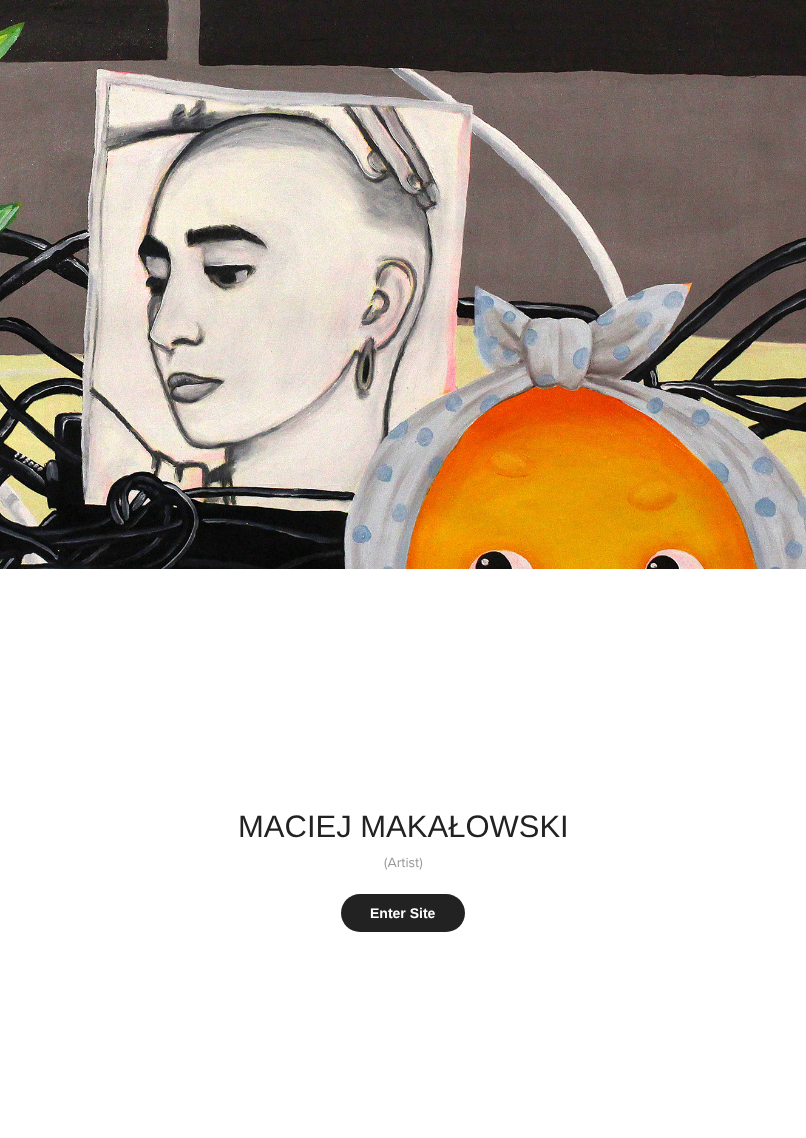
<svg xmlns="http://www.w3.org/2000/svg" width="806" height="1138">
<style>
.a{font:31px Liberation Sans;fill:#222}
.b{font:14px Proxima Nova;fill:#999}
.c{font:bold 14px Liberation Sans;fill:#fff}
</style>
<rect width="100%" height="100%" fill="#fff"/>
<image href="1.png" x="0" y="0" width="806" height="569"/>
<rect fill="#222" x="341" y="894" width="124" height="38" rx="19"/>
<text class="a" x="238" y="837">MACIEJ MAKAŁOWSKI</text>
<text class="b" x="384" y="867">(Artist)</text>
<text class="c" x="370" y="918">Enter Site</text>
</svg>
